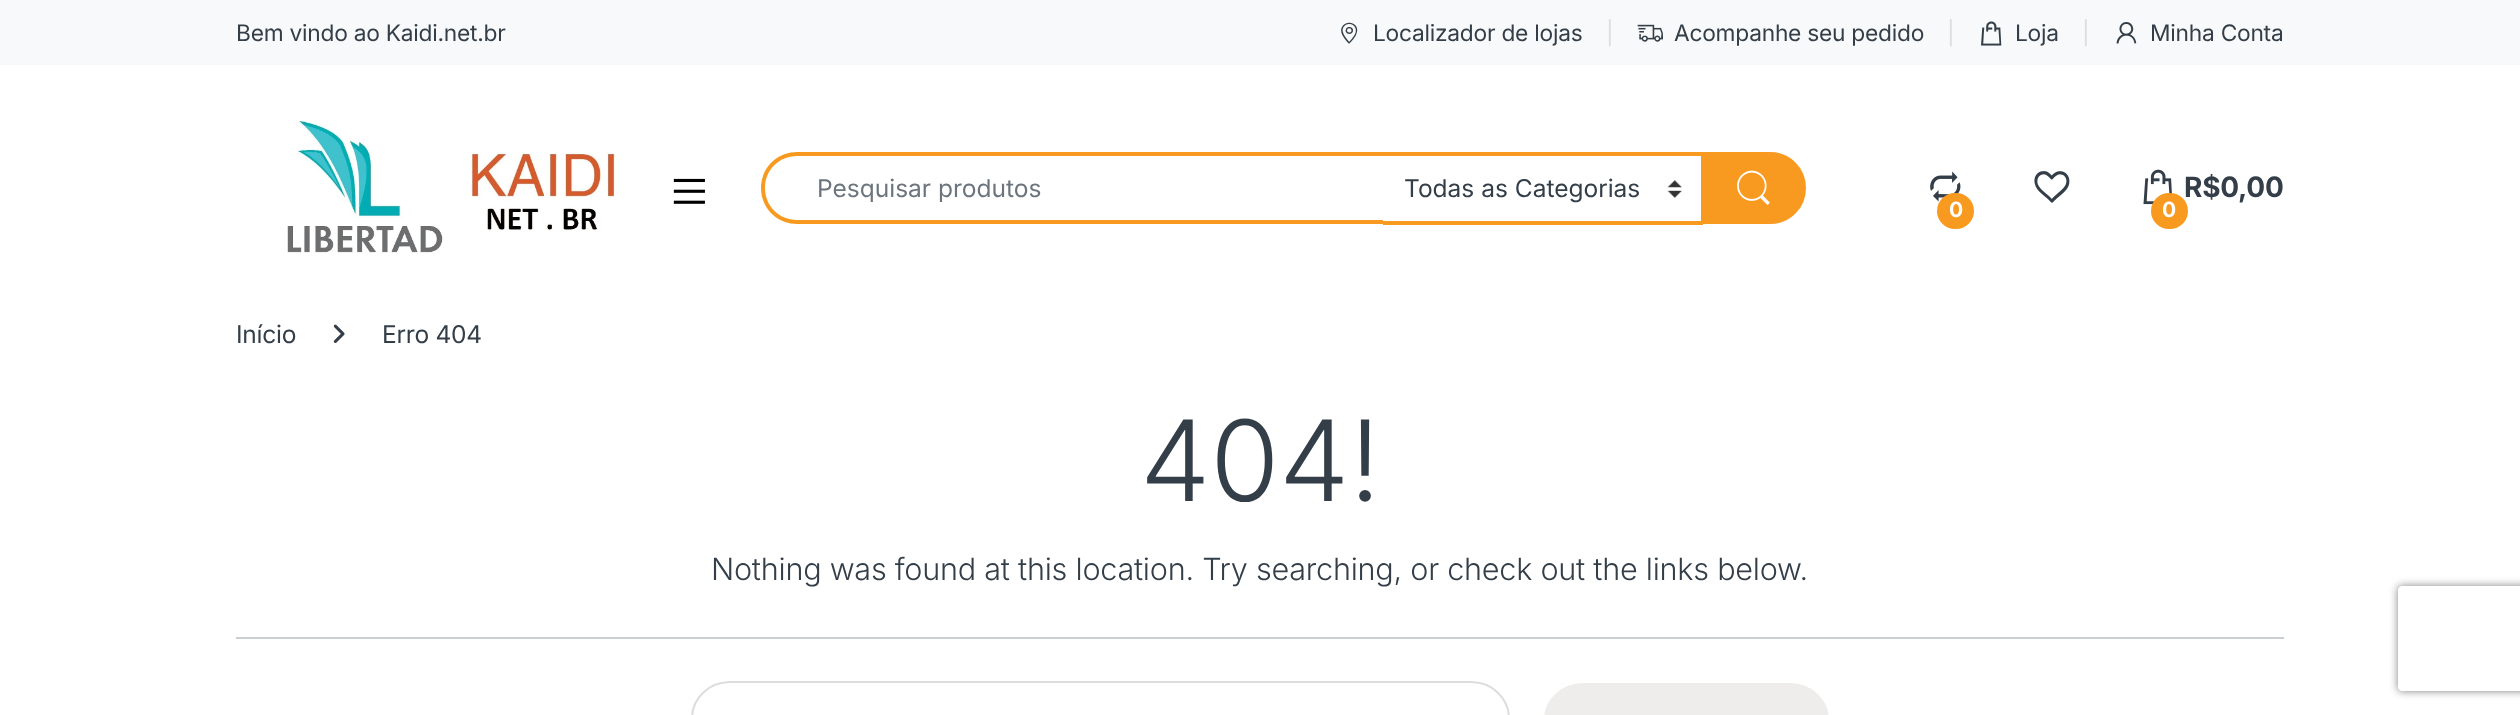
<svg xmlns="http://www.w3.org/2000/svg" width="2520" height="715">
<style>
.a{font:22.75px Inter;letter-spacing:-0.25px;fill:#333e48}
.b{font:22.75px Inter;letter-spacing:-0.25px;fill:#ddd}
.c{font:24.5px Inter;fill:#6c757d}
.d{font:24.5px Inter;fill:#333e48}
.e{font:bold 21px Inter;letter-spacing:-0.25px;fill:#fff}
.f{font:bold 28px Inter;letter-spacing:-0.25px;fill:#333e48}
.g{font:24.5px Inter;letter-spacing:-0.25px;fill:#333e48}
.h{font:300 112px Inter;letter-spacing:-0.25px;fill:#333e48}
.i{font:300 30.6px Inter;letter-spacing:-0.25px;fill:#333e48}
</style>
<defs>
<clipPath id="clip1"><path d="M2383 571h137v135h-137zm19 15h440c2 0 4 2 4 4v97c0 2-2 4-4 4h-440c-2 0-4-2-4-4v-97c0-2 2-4 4-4z" clip-rule="evenodd"/></clipPath>
</defs>
<rect width="100%" height="100%" fill="#fff"/>
<path fill="#f8f9fa" d="M0 0h2520v65H0z"/>
<image href="1.png" x="1341" y="22" width="17" height="22"/>
<image href="2.png" x="1637" y="24" width="26" height="18"/>
<image href="3.png" x="1981" y="21" width="21" height="25"/>
<image href="4.png" x="2116" y="22" width="21" height="22"/>
<image href="5.png" x="287" y="120" width="328" height="133"/>
<image href="6.png" x="673" y="178" width="32" height="26"/>
<path fill="#f89a20" fill-rule="evenodd" d="M797 152h587v72h-587c-20 0-36-16-36-36c0-20 16-36 36-36zm0 4h587v64h-587c-18 0-32-14-32-32c0-18 14-32 32-32z"/>
<path fill="#fff" d="M1383 220h1v1H1383z"/>
<path fill="#f89a20" d="M1383 152h320v4H1383z"/>
<path fill="#f89a20" d="M1383 221h320v4H1383z"/>
<image href="7.png" x="1667" y="180" width="15" height="18"/>
<path fill="#f89a20" stroke="#f89a20" stroke-width="4" d="M1703 154h67c19 0 34 15 34 34c0 19-15 34-34 34h-67z"/>
<image href="8.png" x="1737" y="170" width="33" height="35"/>
<image href="9.png" x="1930" y="171" width="31" height="31"/>
<rect fill="#f89a20" x="1937" y="193" width="37" height="36" rx="18"/>
<image href="10.png" x="2034" y="171" width="36" height="32"/>
<image href="11.png" x="2143" y="169" width="29" height="36"/>
<image href="12.png" x="333" y="324" width="12" height="19"/>
<path fill="#cccfd1" d="M236 637h2048v2H236z"/>
<rect fill="none" stroke="#ddd" stroke-width="2" x="692" y="682" width="817" height="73" rx="38"/>
<rect fill="#efecec" stroke="#efecec" stroke-width="2" x="1545" y="684" width="283" height="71" rx="38"/>
<g clip-path="url(#clip1)">
<rect fill="#808080" filter="blur(4.5px)" x="2398" y="586" width="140" height="105" rx="4"/>
</g>
<text class="a" x="236" y="41">Bem vindo ao Kaidi.net.br</text>
<text class="a" x="1373" y="41">Localizador de lojas</text>
<text class="b" x="1606" y="41">|</text>
<text class="a" x="1674" y="41">Acompanhe seu pedido</text>
<text class="b" x="1947" y="41">|</text>
<text class="a" x="2015" y="41">Loja</text>
<text class="b" x="2082" y="41">|</text>
<text class="a" x="2150" y="41">Minha Conta</text>
<text class="c" x="817" y="197">Pesquisar produtos</text>
<text class="d" x="1404" y="197">Todas as Categorias</text>
<text class="e" x="1949" y="217">0</text>
<text class="f" x="2184" y="197">R$0,00</text>
<rect fill="#f89a20" x="2151" y="193" width="37" height="36" rx="18"/>
<text class="e" x="2162" y="217">0</text>
<text class="g" x="236" y="343">Início</text>
<text class="g" x="382" y="343">Erro 404</text>
<text class="h" x="1140" y="501">404!</text>
<text class="i" x="711" y="580">Nothing was found at this location. Try searching, or check out the links below.</text>
</svg>
